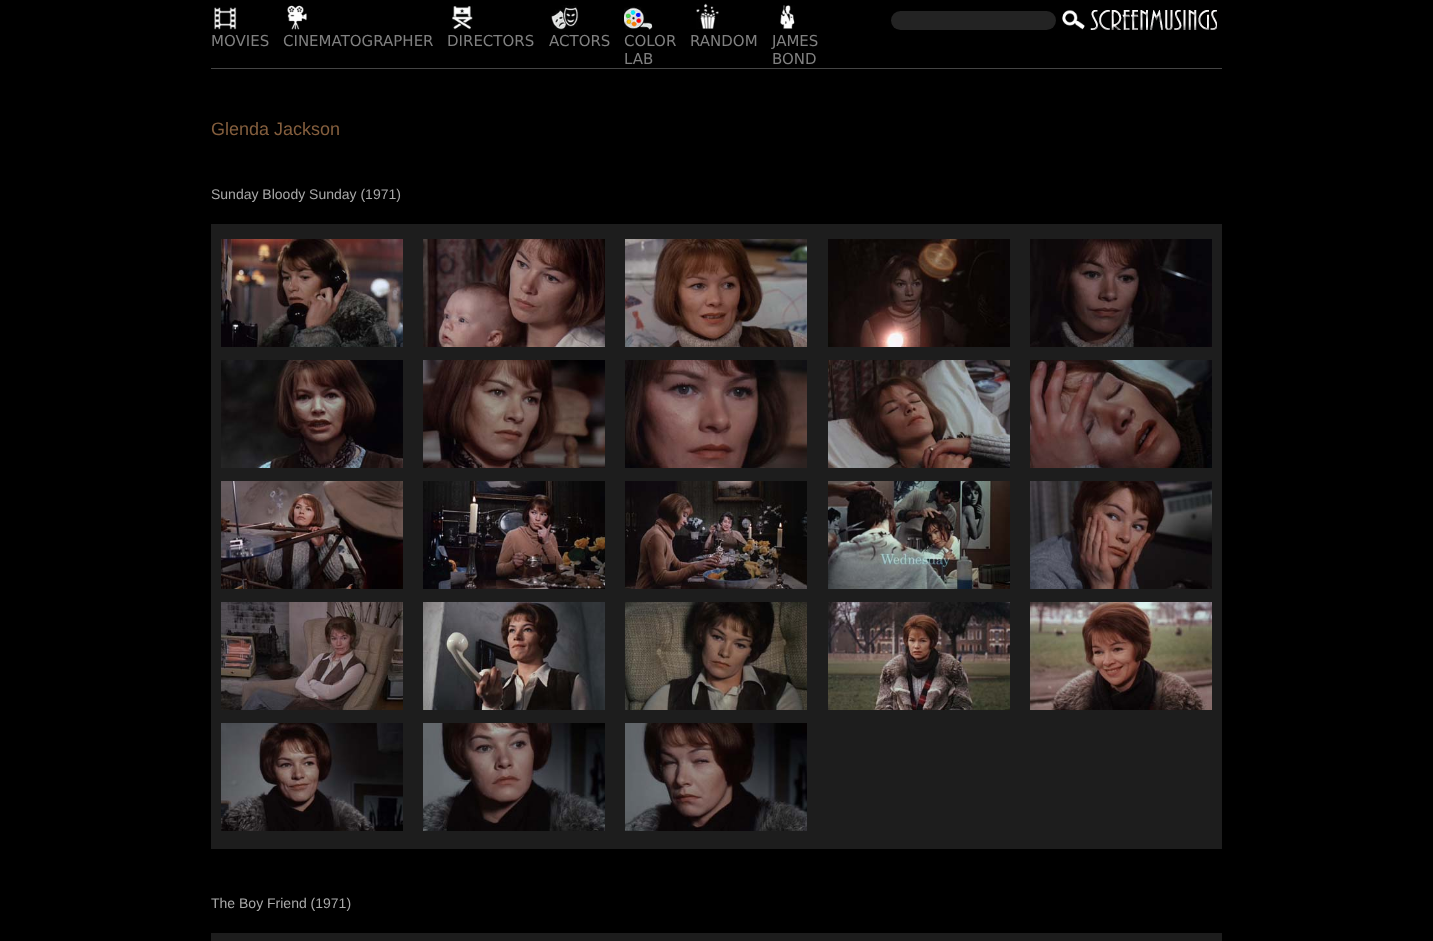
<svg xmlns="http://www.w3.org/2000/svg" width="1433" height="941">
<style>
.a{font:15px DejaVu Sans;fill:#808080}
.b{font:18px Liberation Sans;fill:#845e3d}
.c{font:14px Liberation Sans;fill:#aaa}
</style>
<rect width="100%" height="100%" fill="#000"/>
<path fill="#444" d="M211 68h1011v1H211z"/>
<rect fill="#232323" x="891" y="11" width="165" height="19" rx="9.5"/>
<image href="1.png" x="1062" y="10" width="23" height="20"/>
<image href="2.png" x="1090" y="10" width="127" height="20"/>
<image href="3.png" x="214" y="7" width="23" height="23"/>
<image href="4.png" x="287" y="5" width="20" height="25"/>
<image href="5.png" x="452" y="6" width="21" height="24"/>
<image href="6.png" x="551" y="5" width="28" height="25"/>
<image href="7.png" x="624" y="6" width="29" height="24"/>
<image href="8.png" x="696" y="3" width="23" height="26"/>
<image href="9.png" x="780" y="5" width="15" height="24"/>
<path fill="#1d1d1d" d="M211 224h1011v625H211z"/>
<image href="10.png" x="221" y="239" width="182" height="108"/>
<image href="11.png" x="423" y="239" width="182" height="108"/>
<image href="12.png" x="625" y="239" width="182" height="108"/>
<image href="13.png" x="828" y="239" width="182" height="108"/>
<image href="14.png" x="1030" y="239" width="182" height="108"/>
<image href="15.png" x="221" y="360" width="182" height="108"/>
<image href="16.png" x="423" y="360" width="182" height="108"/>
<image href="17.png" x="625" y="360" width="182" height="108"/>
<image href="18.png" x="828" y="360" width="182" height="108"/>
<image href="19.png" x="1030" y="360" width="182" height="108"/>
<image href="20.png" x="221" y="481" width="182" height="108"/>
<image href="21.png" x="423" y="481" width="182" height="108"/>
<image href="22.png" x="625" y="481" width="182" height="108"/>
<image href="23.png" x="828" y="481" width="182" height="108"/>
<image href="24.png" x="1030" y="481" width="182" height="108"/>
<image href="25.png" x="221" y="602" width="182" height="108"/>
<image href="26.png" x="423" y="602" width="182" height="108"/>
<image href="27.png" x="625" y="602" width="182" height="108"/>
<image href="28.png" x="828" y="602" width="182" height="108"/>
<image href="29.png" x="1030" y="602" width="182" height="108"/>
<image href="30.png" x="221" y="723" width="182" height="108"/>
<image href="31.png" x="423" y="723" width="182" height="108"/>
<image href="32.png" x="625" y="723" width="182" height="108"/>
<path fill="#1d1d1d" d="M211 933h1011v8H211z"/>
<text class="a" x="211" y="46">MOVIES</text>
<text class="a" x="283" y="46">CINEMATOGRAPHER</text>
<text class="a" x="447" y="46">DIRECTORS</text>
<text class="a" x="549" y="46">ACTORS</text>
<text class="a" x="624" y="46">COLOR</text>
<text class="a" x="624" y="64">LAB</text>
<text class="a" x="690" y="46">RANDOM</text>
<text class="a" x="772" y="46">JAMES</text>
<text class="a" x="772" y="64">BOND</text>
<text class="b" x="211" y="135">Glenda Jackson</text>
<text class="c" x="211" y="199">Sunday Bloody Sunday (1971)</text>
<text class="c" x="211" y="908">The Boy Friend (1971)</text>
</svg>
